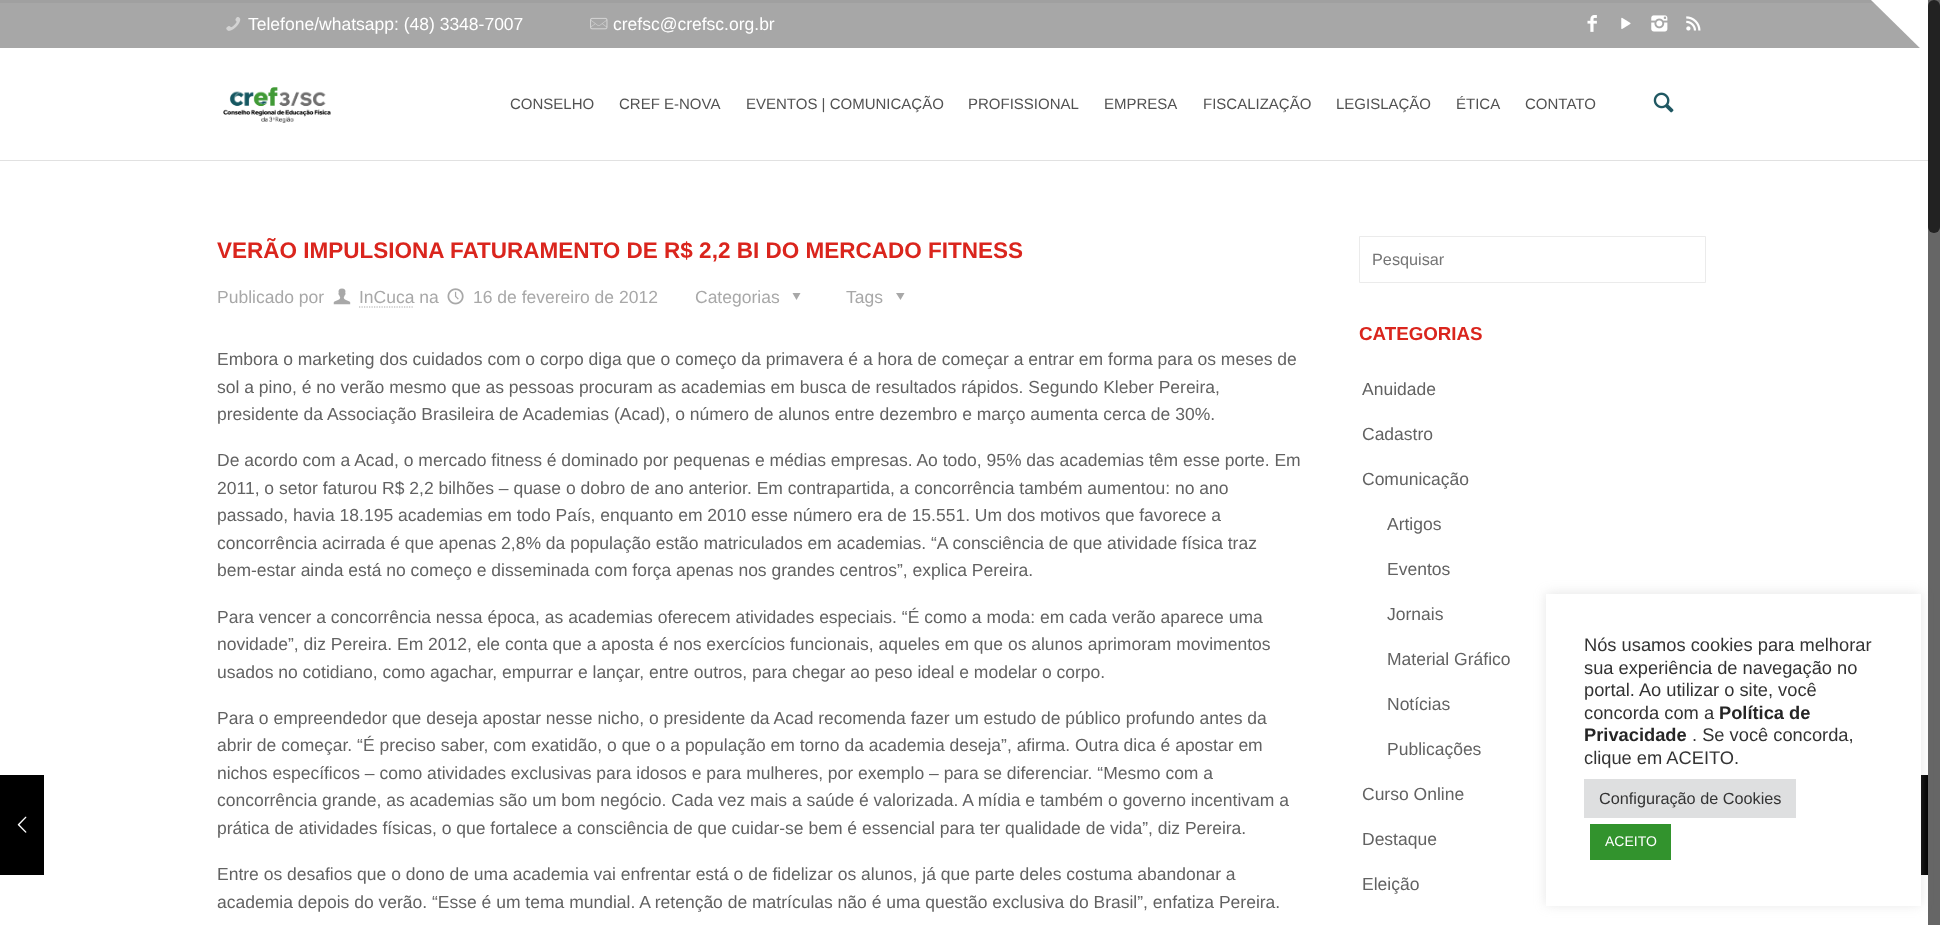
<svg xmlns="http://www.w3.org/2000/svg" width="1940" height="925">
<style>
.a{font:17.5px Liberation Sans;fill:#fff}
.b{font:15px Liberation Sans;fill:#525252}
.c{font:bold 22.5px Liberation Sans;fill:#da251d}
.d{font:17.5px Liberation Sans;fill:#a8a8a8}
.e{font:17.5px Liberation Sans;fill:#626262}
.f{font:16.25px Liberation Sans;fill:#757575}
.g{font:bold 18.75px Liberation Sans;fill:#da251d}
.h{font:18.3px Liberation Sans;fill:#333}
.i{font:bold 18.3px Liberation Sans;fill:#252525}
.j{font:16.25px Liberation Sans;fill:#333}
.k{font:14px Liberation Sans;fill:#fff}
</style>
<rect width="100%" height="100%" fill="#fff"/>
<path fill="#a7a7a7" d="M0 0h1920v48H0z"/>
<path fill="#0000000a" d="M0 0h1874v3H0z"/>
<path fill="#fff" d="M1928 0v56l-57-56z"/>
<path fill="#666" d="M1928 0h12v925H1928z"/>
<rect fill="#222" x="1928" width="12" height="233" rx="6"/>
<path fill="#000" d="M0 775h44v100H0z"/>
<image href="1.png" x="17" y="816" width="10" height="17"/>
<image href="2.png" x="226" y="17" width="15" height="14"/>
<image href="3.png" x="590" y="17" width="18" height="13"/>
<image href="4.png" x="1587" y="15" width="10" height="17"/>
<image href="5.png" x="1621" y="17" width="10" height="12"/>
<image href="6.png" x="1651" y="15" width="17" height="17"/>
<image href="7.png" x="1686" y="16" width="15" height="15"/>
<path fill="#e1e1e1" d="M0 160h1928v1H0z"/>
<image href="8.png" x="223" y="87" width="108" height="36"/>
<image href="9.png" x="1653" y="92" width="21" height="21"/>
<image href="10.png" x="333" y="288" width="18" height="17"/>
<path fill="none" stroke="#a8a8a8" stroke-width="1.2" stroke-dasharray="1.25 1.25" d="M359 307h55"/>
<image href="11.png" x="447" y="288" width="17" height="17"/>
<path fill="#a8a8a8" d="M800.5 293l-4 7l-4-7z"/>
<path fill="#a8a8a8" d="M904.5 293l-4 7l-4.5-7z"/>
<path fill="none" stroke="#ebebeb" d="M1359.5 236.5h346v46H1359.5z"/>
<path fill="#000" d="M1921 775h7v100H1921z"/>
<path fill="#acabab4d" filter="blur(6px)" d="M1546 593h375v312H1546z"/>
<path fill="#fff" d="M1546 594h375v312H1546z"/>
<path fill="#dedfe0" d="M1584 779h212v39H1584z"/>
<path fill="#32932d" d="M1590 824h81v36H1590z"/>
<text class="a" x="248" y="30">Telefone/whatsapp: (48) 3348-7007</text>
<text class="a" x="613" y="30">crefsc@crefsc.org.br</text>
<text class="b" x="510" y="109">CONSELHO</text>
<text class="b" x="619" y="109">CREF E-NOVA</text>
<text class="b" x="746" y="109">EVENTOS | COMUNICAÇÃO</text>
<text class="b" x="968" y="109">PROFISSIONAL</text>
<text class="b" x="1104" y="109">EMPRESA</text>
<text class="b" x="1203" y="109">FISCALIZAÇÃO</text>
<text class="b" x="1336" y="109">LEGISLAÇÃO</text>
<text class="b" x="1456" y="109">ÉTICA</text>
<text class="b" x="1525" y="109">CONTATO</text>
<text class="c" x="217" y="258">VERÃO IMPULSIONA FATURAMENTO DE R$ 2,2 BI DO MERCADO FITNESS</text>
<text class="d" x="217" y="303">Publicado por</text>
<text class="d" x="359" y="303">InCuca na</text>
<text class="d" x="473" y="303">16 de fevereiro de 2012</text>
<text class="d" x="695" y="303">Categorias</text>
<text class="d" x="846" y="303">Tags</text>
<text class="e" x="217" y="365">Embora o marketing dos cuidados com o corpo diga que o começo da primavera é a hora de começar a entrar em forma para os meses de</text>
<text class="e" x="217" y="393">sol a pino, é no verão mesmo que as pessoas procuram as academias em busca de resultados rápidos. Segundo Kleber Pereira,</text>
<text class="e" x="217" y="420">presidente da Associação Brasileira de Academias (Acad), o número de alunos entre dezembro e março aumenta cerca de 30%.</text>
<text class="e" x="217" y="466">De acordo com a Acad, o mercado fitness é dominado por pequenas e médias empresas. Ao todo, 95% das academias têm esse porte. Em</text>
<text class="e" x="217" y="494">2011, o setor faturou R$ 2,2 bilhões – quase o dobro de ano anterior. Em contrapartida, a concorrência também aumentou: no ano</text>
<text class="e" x="217" y="521">passado, havia 18.195 academias em todo País, enquanto em 2010 esse número era de 15.551. Um dos motivos que favorece a</text>
<text class="e" x="217" y="549">concorrência acirrada é que apenas 2,8% da população estão matriculados em academias. “A consciência de que atividade física traz</text>
<text class="e" x="217" y="576">bem-estar ainda está no começo e disseminada com força apenas nos grandes centros”, explica Pereira.</text>
<text class="e" x="217" y="623">Para vencer a concorrência nessa época, as academias oferecem atividades especiais. “É como a moda: em cada verão aparece uma</text>
<text class="e" x="217" y="650">novidade”, diz Pereira. Em 2012, ele conta que a aposta é nos exercícios funcionais, aqueles em que os alunos aprimoram movimentos</text>
<text class="e" x="217" y="678">usados no cotidiano, como agachar, empurrar e lançar, entre outros, para chegar ao peso ideal e modelar o corpo.</text>
<text class="e" x="217" y="724">Para o empreendedor que deseja apostar nesse nicho, o presidente da Acad recomenda fazer um estudo de público profundo antes da</text>
<text class="e" x="217" y="751">abrir de começar. “É preciso saber, com exatidão, o que o a população em torno da academia deseja”, afirma. Outra dica é apostar em</text>
<text class="e" x="217" y="779">nichos específicos – como atividades exclusivas para idosos e para mulheres, por exemplo – para se diferenciar. “Mesmo com a</text>
<text class="e" x="217" y="806">concorrência grande, as academias são um bom negócio. Cada vez mais a saúde é valorizada. A mídia e também o governo incentivam a</text>
<text class="e" x="217" y="834">prática de atividades físicas, o que fortalece a consciência de que cuidar-se bem é essencial para ter qualidade de vida”, diz Pereira.</text>
<text class="e" x="217" y="880">Entre os desafios que o dono de uma academia vai enfrentar está o de fidelizar os alunos, já que parte deles costuma abandonar a</text>
<text class="e" x="217" y="908">academia depois do verão. “Esse é um tema mundial. A retenção de matrículas não é uma questão exclusiva do Brasil”, enfatiza Pereira.</text>
<text class="f" x="1372" y="265">Pesquisar</text>
<text class="g" x="1359" y="340">CATEGORIAS</text>
<text class="e" x="1362" y="395">Anuidade</text>
<text class="e" x="1362" y="440">Cadastro</text>
<text class="e" x="1362" y="485">Comunicação</text>
<text class="e" x="1387" y="530">Artigos</text>
<text class="e" x="1387" y="575">Eventos</text>
<text class="e" x="1387" y="620">Jornais</text>
<text class="e" x="1387" y="665">Material Gráfico</text>
<text class="e" x="1387" y="710">Notícias</text>
<text class="e" x="1387" y="755">Publicações</text>
<text class="e" x="1362" y="800">Curso Online</text>
<text class="e" x="1362" y="845">Destaque</text>
<text class="e" x="1362" y="890">Eleição</text>
<text class="h" x="1584" y="651">Nós usamos cookies para melhorar</text>
<text class="h" x="1584" y="674">sua experiência de navegação no</text>
<text class="h" x="1584" y="696">portal. Ao utilizar o site, você</text>
<text class="h" x="1584" y="719">concorda com a</text>
<text class="i" x="1719" y="719">Política de</text>
<text class="i" x="1584" y="741">Privacidade</text>
<text class="h" x="1692" y="741">. Se você concorda,</text>
<text class="h" x="1584" y="764">clique em ACEITO.</text>
<text class="j" x="1599" y="804">Configuração de Cookies</text>
<text class="k" x="1605" y="846">ACEITO</text>
</svg>
